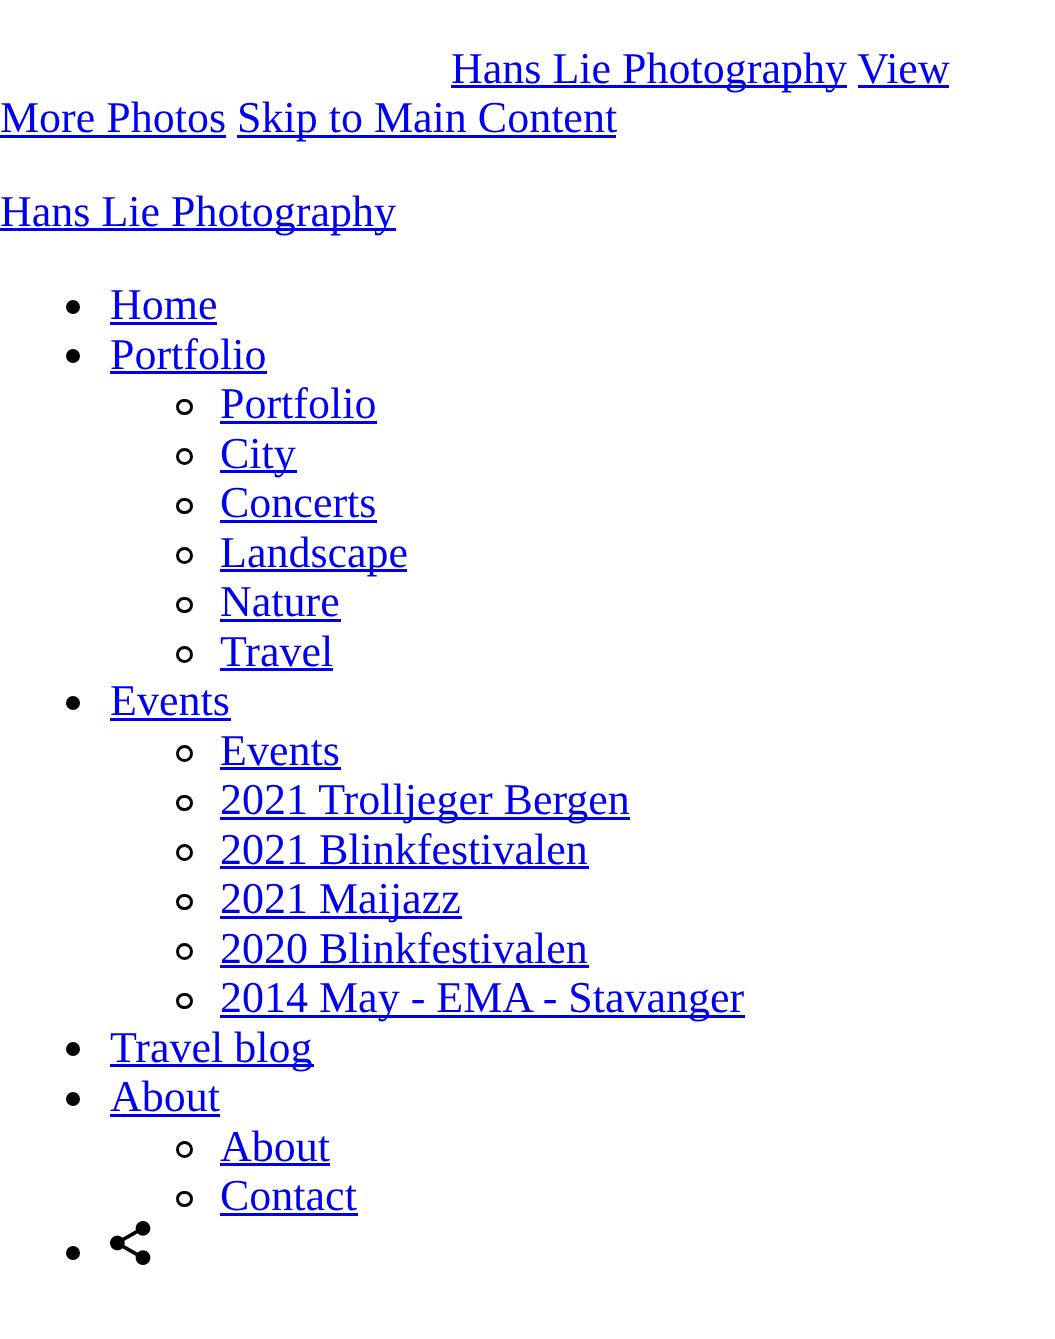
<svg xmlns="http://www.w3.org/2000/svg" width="1055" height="1339">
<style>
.a{font:44px Liberation Serif;fill:#00e}
</style>
<rect width="100%" height="100%" fill="#fff"/>
<path fill="#00e" d="M451 85h396v3H451z"/>
<path fill="#00e" d="M858 85h91v3H858z"/>
<path fill="#00e" d="M0 135h226v3H0z"/>
<path fill="#00e" d="M237 135h379v3H237z"/>
<path fill="#00e" d="M0 228h396v3H0z"/>
<circle fill="#000" cx="73" cy="307" r="7"/>
<path fill="#00e" d="M110 322h107v3H110z"/>
<circle fill="#000" cx="73" cy="356" r="7"/>
<path fill="#00e" d="M110 371h157v3H110z"/>
<rect fill="none" stroke="#000" stroke-width="3" x="177.5" y="400.5" width="14" height="13" rx="6.5"/>
<path fill="#00e" d="M220 421h157v3H220z"/>
<circle fill="none" stroke="#000" stroke-width="3" cx="184.5" cy="456.5" r="7"/>
<path fill="#00e" d="M220 470h77v3H220z"/>
<rect fill="none" stroke="#000" stroke-width="3" x="177.5" y="499.5" width="14" height="13" rx="6.5"/>
<path fill="#00e" d="M220 520h157v3H220z"/>
<circle fill="none" stroke="#000" stroke-width="3" cx="184.5" cy="555.5" r="7"/>
<path fill="#00e" d="M220 569h187v3H220z"/>
<rect fill="none" stroke="#000" stroke-width="3" x="177.5" y="598.5" width="14" height="13" rx="6.5"/>
<path fill="#00e" d="M220 619h121v3H220z"/>
<circle fill="none" stroke="#000" stroke-width="3" cx="184.5" cy="654.5" r="7"/>
<path fill="#00e" d="M220 668h113v3H220z"/>
<circle fill="#000" cx="73" cy="703" r="7"/>
<path fill="#00e" d="M110 718h121v3H110z"/>
<circle fill="none" stroke="#000" stroke-width="3" cx="184.5" cy="753.5" r="7"/>
<path fill="#00e" d="M220 767h121v3H220z"/>
<rect fill="none" stroke="#000" stroke-width="3" x="177.5" y="796.5" width="14" height="13" rx="6.5"/>
<path fill="#00e" d="M220 817h410v3H220z"/>
<circle fill="none" stroke="#000" stroke-width="3" cx="184.5" cy="852.5" r="7"/>
<path fill="#00e" d="M220 866h369v3H220z"/>
<rect fill="none" stroke="#000" stroke-width="3" x="177.5" y="895.5" width="14" height="13" rx="6.5"/>
<path fill="#00e" d="M220 916h242v3H220z"/>
<circle fill="none" stroke="#000" stroke-width="3" cx="184.5" cy="951.5" r="7"/>
<path fill="#00e" d="M220 965h369v3H220z"/>
<rect fill="none" stroke="#000" stroke-width="3" x="177.5" y="994.5" width="14" height="13" rx="6.5"/>
<path fill="#00e" d="M220 1015h525v3H220z"/>
<circle fill="#000" cx="73" cy="1049" r="7"/>
<path fill="#00e" d="M110 1064h204v3H110z"/>
<circle fill="#000" cx="73" cy="1099" r="7"/>
<path fill="#00e" d="M110 1114h110v3H110z"/>
<circle fill="none" stroke="#000" stroke-width="3" cx="184.5" cy="1149.5" r="7"/>
<path fill="#00e" d="M220 1163h110v3H220z"/>
<rect fill="none" stroke="#000" stroke-width="3" x="177.5" y="1192.5" width="14" height="13" rx="6.5"/>
<path fill="#00e" d="M220 1213h138v3H220z"/>
<circle fill="#000" cx="73" cy="1253" r="7"/>
<image href="1.png" x="110" y="1221" width="41" height="44"/>
<text class="a" x="451" y="83">Hans Lie Photography</text>
<text class="a" x="857" y="83">View</text>
<text class="a" x="0" y="132">More Photos</text>
<text class="a" x="237" y="132">Skip to Main Content</text>
<text class="a" x="0" y="226">Hans Lie Photography</text>
<text class="a" x="110" y="319">Home</text>
<text class="a" x="110" y="369">Portfolio</text>
<text class="a" x="220" y="418">Portfolio</text>
<text class="a" x="220" y="468">City</text>
<text class="a" x="220" y="517">Concerts</text>
<text class="a" x="220" y="567">Landscape</text>
<text class="a" x="220" y="616">Nature</text>
<text class="a" x="220" y="666">Travel</text>
<text class="a" x="110" y="715">Events</text>
<text class="a" x="220" y="765">Events</text>
<text class="a" x="220" y="814">2021 Trolljeger Bergen</text>
<text class="a" x="220" y="864">2021 Blinkfestivalen</text>
<text class="a" x="220" y="913">2021 Maijazz</text>
<text class="a" x="220" y="963">2020 Blinkfestivalen</text>
<text class="a" x="220" y="1012">2014 May - EMA - Stavanger</text>
<text class="a" x="110" y="1062">Travel blog</text>
<text class="a" x="110" y="1111">About</text>
<text class="a" x="220" y="1161">About</text>
<text class="a" x="220" y="1210">Contact</text>
</svg>
